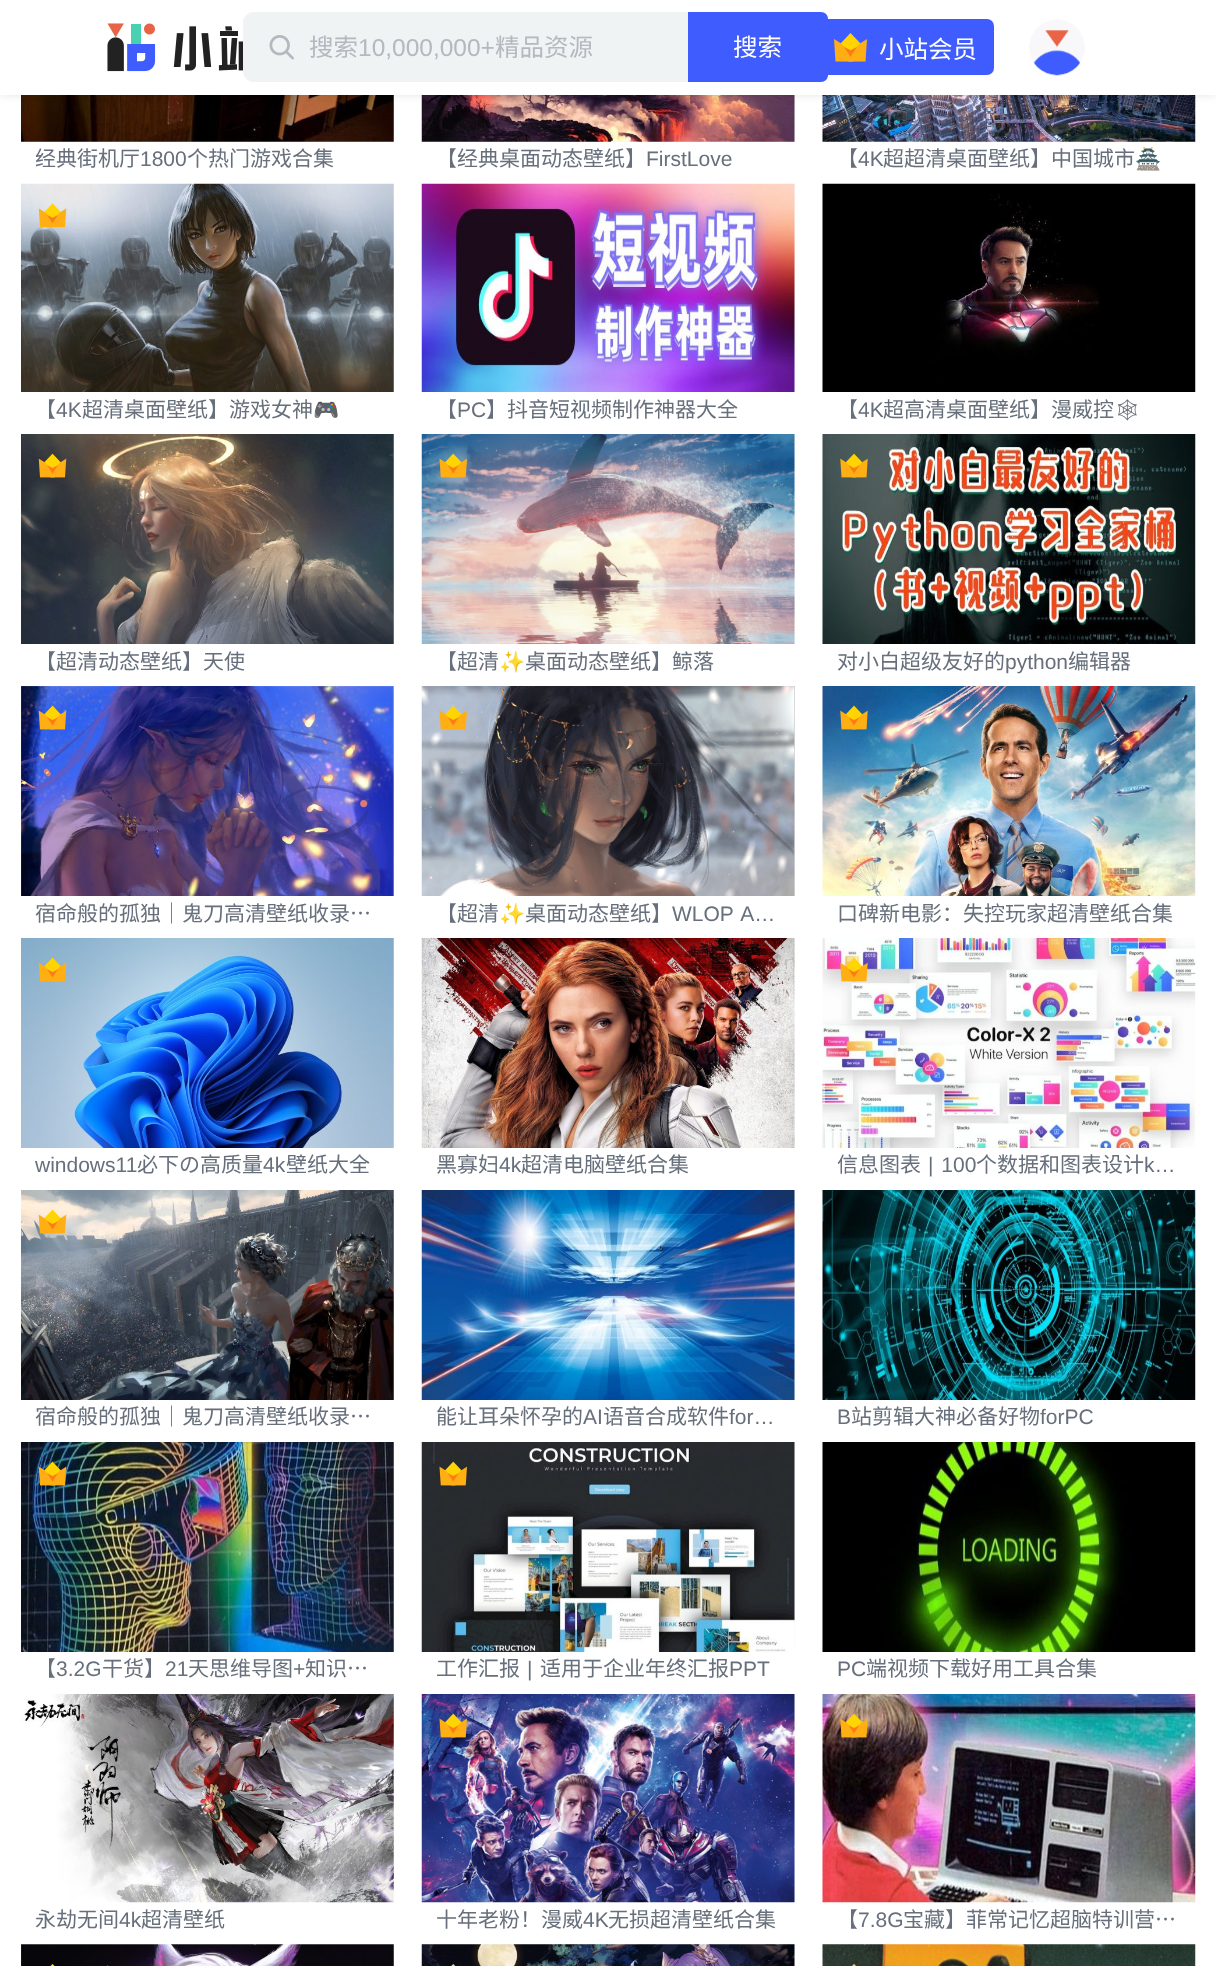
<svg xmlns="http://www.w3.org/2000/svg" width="1216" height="1966">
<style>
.a{font:24.5px Noto Sans CJK SC;fill:#b4b8bf}
.b{font:24.5px Liberation Sans;fill:#b4b8bf}
.c{font:24.5px Noto Sans CJK SC;fill:#fff}
.d{font:21px Noto Sans CJK SC;fill:#666f7b}
.e{font:21px Liberation Sans;fill:#666f7b}
.f{font:21px Noto Color Emoji;fill:#666f7b}
.g{font:21px Noto Emoji;fill:#666f7b}
</style>
<rect width="100%" height="100%" fill="#fff"/>
<path fill="#f6f7f9" d="M21 95h373v47H21z"/>
<image href="5.png" x="21" y="95" width="373" height="47"/>
<path fill="#f6f7f9" d="M422 95h373v47H422z"/>
<image href="21.png" x="421" y="95" width="374" height="47"/>
<image href="35.png" x="822" y="95" width="374" height="47"/>
<path fill="#0000001a" filter="blur(4.5px)" d="M0 0h1216v95H0z"/>
<path fill="#fff" d="M0 0h1216v95H0z"/>
<image href="1.png" x="107" y="23" width="136" height="49"/>
<rect fill="#f0f3f4" x="243" y="12" width="585" height="70" rx="11"/>
<image href="2.png" x="269" y="35" width="25" height="25"/>
<path fill="#3f5dff" d="M688 12h133c4 0 7 3 7 7v56c0 4-3 7-7 7h-133z"/>
<rect fill="#3f5dff" x="812" y="19" width="182" height="56" rx="7"/>
<image href="3.png" x="834" y="33" width="33" height="29"/>
<image href="4.png" x="1029" y="19" width="56" height="57"/>
<image href="6.png" x="21" y="183" width="373" height="209"/>
<image href="7.png" x="38" y="203" width="29" height="25"/>
<image href="8.png" x="21" y="434" width="373" height="210"/>
<image href="9.png" x="38" y="453" width="29" height="25"/>
<image href="10.png" x="21" y="686" width="373" height="210"/>
<image href="11.png" x="38" y="705" width="29" height="25"/>
<image href="12.png" x="21" y="938" width="373" height="210"/>
<image href="13.png" x="38" y="957" width="29" height="25"/>
<image href="14.png" x="21" y="1190" width="373" height="210"/>
<image href="15.png" x="38" y="1209" width="29" height="25"/>
<image href="16.png" x="21" y="1442" width="373" height="210"/>
<image href="17.png" x="38" y="1461" width="29" height="25"/>
<image href="18.png" x="21" y="1694" width="373" height="209"/>
<path fill="#f6f7f9" d="M21 1944h373v22H21z"/>
<image href="19.png" x="21" y="1944" width="373" height="22"/>
<image href="20.png" x="50" y="1964" width="5" height="2"/>
<path fill="#f6f7f9" d="M794 184h1v208H794z"/>
<image href="22.png" x="421" y="183" width="374" height="209"/>
<path fill="#f6f7f9" d="M794 434h1v210H794z"/>
<image href="23.png" x="421" y="434" width="374" height="210"/>
<image href="24.png" x="439" y="453" width="28" height="25"/>
<path fill="#f6f7f9" d="M794 686h1v210H794z"/>
<image href="25.png" x="421" y="686" width="374" height="210"/>
<image href="26.png" x="439" y="705" width="28" height="25"/>
<path fill="#f6f7f9" d="M794 938h1v210H794z"/>
<image href="27.png" x="421" y="938" width="374" height="210"/>
<path fill="#f6f7f9" d="M794 1190h1v210H794z"/>
<image href="28.png" x="421" y="1190" width="374" height="210"/>
<path fill="#f6f7f9" d="M794 1442h1v210H794z"/>
<image href="29.png" x="421" y="1442" width="374" height="210"/>
<image href="30.png" x="439" y="1461" width="28" height="25"/>
<path fill="#f6f7f9" d="M794 1694h1v208H794z"/>
<image href="31.png" x="421" y="1694" width="374" height="209"/>
<image href="32.png" x="439" y="1713" width="28" height="25"/>
<path fill="#f6f7f9" d="M422 1944h373v22H422z"/>
<image href="33.png" x="421" y="1944" width="374" height="22"/>
<image href="34.png" x="451" y="1964" width="5" height="2"/>
<image href="36.png" x="822" y="183" width="374" height="209"/>
<image href="37.png" x="822" y="434" width="374" height="210"/>
<image href="38.png" x="840" y="453" width="28" height="25"/>
<image href="39.png" x="822" y="686" width="374" height="210"/>
<image href="40.png" x="840" y="705" width="28" height="25"/>
<image href="41.png" x="822" y="938" width="374" height="210"/>
<image href="42.png" x="840" y="957" width="28" height="25"/>
<image href="43.png" x="822" y="1190" width="374" height="210"/>
<image href="44.png" x="822" y="1442" width="374" height="210"/>
<image href="45.png" x="822" y="1694" width="374" height="209"/>
<image href="46.png" x="840" y="1713" width="28" height="25"/>
<image href="47.png" x="822" y="1944" width="374" height="22"/>
<image href="48.png" x="852" y="1964" width="4" height="2"/>
<text class="a" x="309" y="56">搜索</text>
<text class="b" x="358" y="56">10,000,000+</text>
<text class="a" x="495" y="56">精品资源</text>
<text class="c" x="733" y="56">搜索</text>
<text class="c" x="879" y="58">小站会员</text>
<text class="d" x="35" y="166">经典街机厅</text>
<text class="e" x="140" y="166">1800</text>
<text class="d" x="187" y="166">个热门游戏合集</text>
<text class="d" x="35" y="417">【</text>
<text class="e" x="56" y="417">4K</text>
<text class="d" x="82" y="417">超清桌面壁纸】游戏女神</text>
<text class="f" x="313" y="417">🎮</text>
<text class="d" x="35" y="669">【超清动态壁纸】天使</text>
<text class="d" x="35" y="921">宿命般的孤独｜鬼刀高清壁纸收录…</text>
<text class="e" x="35" y="1172">windows11</text>
<text class="d" x="137" y="1172">必下の高质量</text>
<text class="e" x="263" y="1172">4k</text>
<text class="d" x="286" y="1172">壁纸大全</text>
<text class="d" x="35" y="1424">宿命般的孤独｜鬼刀高清壁纸收录…</text>
<text class="d" x="35" y="1676">【</text>
<text class="e" x="56" y="1676">3.2G</text>
<text class="d" x="102" y="1676">干货】</text>
<text class="e" x="165" y="1676">21</text>
<text class="d" x="188" y="1676">天思维导图</text>
<text class="e" x="293" y="1676">+</text>
<text class="d" x="305" y="1676">知识…</text>
<text class="d" x="35" y="1927">永劫无间</text>
<text class="e" x="119" y="1927">4k</text>
<text class="d" x="141" y="1927">超清壁纸</text>
<text class="d" x="436" y="166">【经典桌面动态壁纸】</text>
<text class="e" x="646" y="166">FirstLove</text>
<text class="d" x="436" y="417">【</text>
<text class="e" x="457" y="417">PC</text>
<text class="d" x="486" y="417">】抖音短视频制作神器大全</text>
<text class="d" x="436" y="669">【超清</text>
<text class="f" x="499" y="669">✨</text>
<text class="d" x="525" y="669">桌面动态壁纸】鲸落</text>
<text class="d" x="436" y="921">【超清</text>
<text class="f" x="499" y="921">✨</text>
<text class="d" x="525" y="921">桌面动态壁纸】</text>
<text class="e" x="672" y="921" word-spacing="2">WLOP A…</text>
<text class="d" x="436" y="1172">黑寡妇</text>
<text class="e" x="499" y="1172">4k</text>
<text class="d" x="521" y="1172">超清电脑壁纸合集</text>
<text class="d" x="436" y="1424">能让耳朵怀孕的</text>
<text class="e" x="583" y="1424">AI</text>
<text class="d" x="603" y="1424">语音合成软件</text>
<text class="e" x="729" y="1424">for…</text>
<text class="d" x="436" y="1676">工作汇报</text>
<text class="e" x="527" y="1676">|</text>
<text class="d" x="540" y="1676">适用于企业年终汇报</text>
<text class="e" x="729" y="1676">PPT</text>
<text class="d" x="436" y="1927">十年老粉！漫威</text>
<text class="e" x="583" y="1927">4K</text>
<text class="d" x="608" y="1927">无损超清壁纸合集</text>
<text class="d" x="837" y="166">【</text>
<text class="e" x="858" y="166">4K</text>
<text class="d" x="883" y="166">超超清桌面壁纸】中国城市</text>
<text class="f" x="1135" y="166">🏯</text>
<text class="d" x="837" y="417">【</text>
<text class="e" x="858" y="417">4K</text>
<text class="d" x="883" y="417">超高清桌面壁纸】漫威控</text>
<text class="g" x="1114" y="417">🕸</text>
<text class="d" x="837" y="669">对小白超级友好的</text>
<text class="e" x="1005" y="669">python</text>
<text class="d" x="1068" y="669">编辑器</text>
<text class="d" x="837" y="921">口碑新电影：失控玩家超清壁纸合集</text>
<text class="d" x="837" y="1172">信息图表</text>
<text class="e" x="928" y="1172" word-spacing="2">| 100</text>
<text class="d" x="976" y="1172">个数据和图表设计</text>
<text class="e" x="1144" y="1172">k…</text>
<text class="e" x="837" y="1424">B</text>
<text class="d" x="851" y="1424">站剪辑大神必备好物</text>
<text class="e" x="1040" y="1424">forPC</text>
<text class="e" x="837" y="1676">PC</text>
<text class="d" x="866" y="1676">端视频下载好用工具合集</text>
<text class="d" x="837" y="1927">【</text>
<text class="e" x="858" y="1927">7.8G</text>
<text class="d" x="903" y="1927">宝藏】菲常记忆超脑特训营…</text>
</svg>
